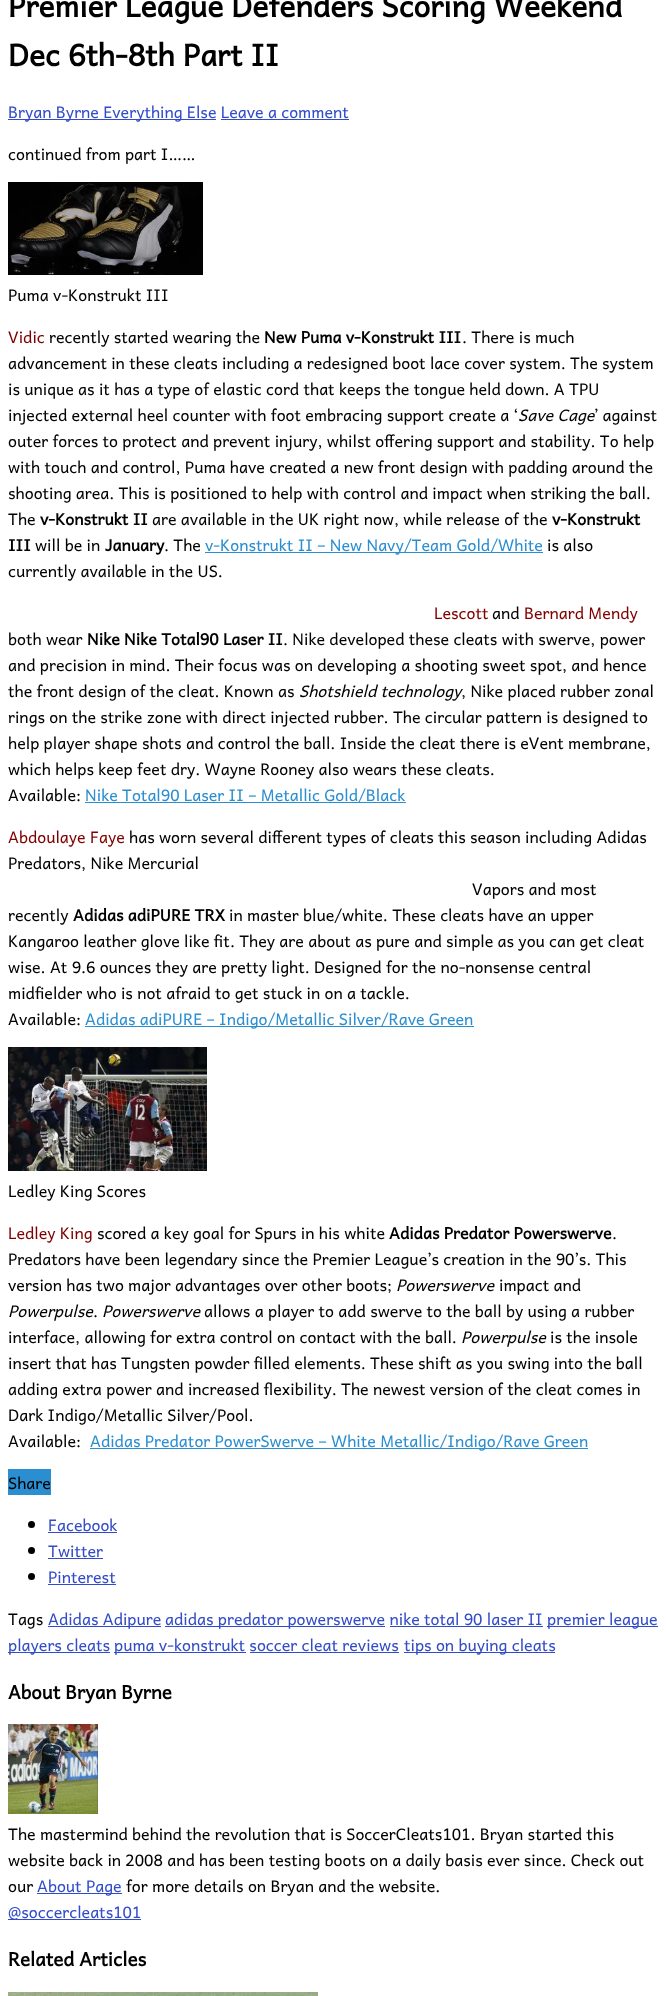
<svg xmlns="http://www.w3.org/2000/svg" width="666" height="1996">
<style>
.a{font:bold 30px Andika;fill:#000}
.b{font:16px Andika;fill:#324cc9}
.c{font:16px Andika;fill:#000}
.d{font:16px Andika;fill:#800000}
.e{font:bold 16px Andika;fill:#000}
.f{font:italic 16px Andika;fill:#000}
.g{font:16px Andika;fill:#2a8ed1}
.h{font:bold 18.75px Andika;fill:#000}
</style>
<rect width="100%" height="100%" fill="#fff"/>
<path fill="#324cc9" d="M8 119h208v1H8z"/>
<path fill="#324cc9" d="M221 119h128v1H221z"/>
<image href="1.png" x="8" y="182" width="195" height="93"/>
<path fill="#2a8ed1" d="M205 552h338v1H205z"/>
<path fill="#2a8ed1" d="M85 802h321v1H85z"/>
<path fill="#2a8ed1" d="M85 1026h389v1H85z"/>
<image href="2.png" x="8" y="1047" width="199" height="124"/>
<path fill="#2a8ed1" d="M90 1448h498v1H90z"/>
<path fill="#2a8ed1" d="M8 1469h43v26H8z"/>
<circle fill="#000" cx="31.5" cy="1524.5" r="3.5"/>
<path fill="#324cc9" d="M48 1532h69v1H48z"/>
<circle fill="#000" cx="31.5" cy="1550.5" r="3.5"/>
<path fill="#324cc9" d="M48 1558h55v1H48z"/>
<circle fill="#000" cx="31.5" cy="1576.5" r="3.5"/>
<path fill="#324cc9" d="M48 1584h68v1H48z"/>
<path fill="#324cc9" d="M48 1626h113v1H48z"/>
<path fill="#324cc9" d="M165 1626h220v1H165z"/>
<path fill="#324cc9" d="M547 1626h111v1H547z"/>
<path fill="#324cc9" d="M390 1626h153v1H390z"/>
<path fill="#324cc9" d="M8 1652h102v1H8z"/>
<path fill="#324cc9" d="M114 1652h132v1H114z"/>
<path fill="#324cc9" d="M404 1652h151v1H404z"/>
<path fill="#324cc9" d="M250 1652h149v1H250z"/>
<image href="3.png" x="8" y="1724" width="90" height="90"/>
<path fill="#324cc9" d="M37 1893h85v1H37z"/>
<path fill="#324cc9" d="M8 1919h133v1H8z"/>
<image href="4.png" x="8" y="1992" width="310" height="4"/>
<text class="a" x="8" y="17">Premier League Defenders Scoring Weekend</text>
<text class="a" x="8" y="66">Dec 6th-8th Part II</text>
<text class="b" x="8" y="118">Bryan Byrne Everything Else Leave a comment</text>
<text class="c" x="8" y="160">continued from part I……</text>
<text class="c" x="8" y="301">Puma v-Konstrukt III</text>
<text class="d" x="8" y="343">Vidic</text>
<text class="c" x="49" y="343">recently started wearing the</text>
<text class="e" x="264" y="343">New Puma v-Konstrukt III</text>
<text class="c" x="462" y="343">. There is much</text>
<text class="c" x="8" y="369">advancement in these cleats including a redesigned boot lace cover system. The system</text>
<text class="c" x="8" y="395">is unique as it has a type of elastic cord that keeps the tongue held down. A TPU</text>
<text class="c" x="8" y="421">injected external heel counter with foot embracing support create a ‘</text>
<text class="f" x="518" y="421">Save Cage</text>
<text class="c" x="594" y="421">’ against</text>
<text class="c" x="8" y="447">outer forces to protect and prevent injury, whilst offering support and stability. To help</text>
<text class="c" x="8" y="473">with touch and control, Puma have created a new front design with padding around the</text>
<text class="c" x="8" y="499">shooting area. This is positioned to help with control and impact when striking the ball.</text>
<text class="c" x="8" y="525">The</text>
<text class="e" x="40" y="525">v-Konstrukt II</text>
<text class="c" x="152" y="525">are available in the UK right now, while release of the</text>
<text class="e" x="552" y="525">v-Konstrukt</text>
<text class="e" x="8" y="551">III</text>
<text class="c" x="35" y="551">will be in</text>
<text class="e" x="105" y="551">January</text>
<text class="c" x="164" y="551">. The</text>
<text class="g" x="205" y="551">v-Konstrukt II – New Navy/Team Gold/White</text>
<text class="c" x="547" y="551">is also</text>
<text class="c" x="8" y="577">currently available in the US.</text>
<text class="d" x="434" y="619">Lescott</text>
<text class="c" x="492" y="619">and</text>
<text class="d" x="524" y="619">Bernard Mendy</text>
<text class="c" x="8" y="645">both wear</text>
<text class="e" x="87" y="645">Nike Nike Total90 Laser II</text>
<text class="c" x="283" y="645">. Nike developed these cleats with swerve, power</text>
<text class="c" x="8" y="671">and precision in mind. Their focus was on developing a shooting sweet spot, and hence</text>
<text class="c" x="8" y="697">the front design of the cleat. Known as</text>
<text class="f" x="299" y="697">Shotshield technology</text>
<text class="c" x="461" y="697">, Nike placed rubber zonal</text>
<text class="c" x="8" y="723">rings on the strike zone with direct injected rubber. The circular pattern is designed to</text>
<text class="c" x="8" y="749">help player shape shots and control the ball. Inside the cleat there is eVent membrane,</text>
<text class="c" x="8" y="775">which helps keep feet dry. Wayne Rooney also wears these cleats.</text>
<text class="c" x="8" y="801">Available:</text>
<text class="g" x="85" y="801">Nike Total90 Laser II – Metallic Gold/Black</text>
<text class="d" x="8" y="843">Abdoulaye Faye</text>
<text class="c" x="129" y="843">has worn several different types of cleats this season including Adidas</text>
<text class="c" x="8" y="869">Predators, Nike Mercurial</text>
<text class="c" x="472" y="895">Vapors and most</text>
<text class="c" x="8" y="921">recently</text>
<text class="e" x="73" y="921">Adidas adiPURE TRX</text>
<text class="c" x="229" y="921">in master blue/white. These cleats have an upper</text>
<text class="c" x="8" y="947">Kangaroo leather glove like fit. They are about as pure and simple as you can get cleat</text>
<text class="c" x="8" y="973">wise. At 9.6 ounces they are pretty light. Designed for the no-nonsense central</text>
<text class="c" x="8" y="999">midfielder who is not afraid to get stuck in on a tackle.</text>
<text class="c" x="8" y="1025">Available:</text>
<text class="g" x="85" y="1025">Adidas adiPURE – Indigo/Metallic Silver/Rave Green</text>
<text class="c" x="8" y="1197">Ledley King Scores</text>
<text class="d" x="8" y="1239">Ledley King</text>
<text class="c" x="97" y="1239">scored a key goal for Spurs in his white</text>
<text class="e" x="389" y="1239">Adidas Predator Powerswerve</text>
<text class="c" x="612" y="1239">.</text>
<text class="c" x="8" y="1265">Predators have been legendary since the Premier League’s creation in the 90’s. This</text>
<text class="c" x="8" y="1291">version has two major advantages over other boots;</text>
<text class="f" x="396" y="1291">Powerswerve</text>
<text class="c" x="499" y="1291">impact and</text>
<text class="f" x="8" y="1317">Powerpulse</text>
<text class="c" x="93" y="1317">.</text>
<text class="f" x="102" y="1317">Powerswerve</text>
<text class="c" x="204" y="1317">allows a player to add swerve to the ball by using a rubber</text>
<text class="c" x="8" y="1343">interface, allowing for extra control on contact with the ball.</text>
<text class="f" x="461" y="1343">Powerpulse</text>
<text class="c" x="550" y="1343">is the insole</text>
<text class="c" x="8" y="1369">insert that has Tungsten powder filled elements. These shift as you swing into the ball</text>
<text class="c" x="8" y="1395">adding extra power and increased flexibility. The newest version of the cleat comes in</text>
<text class="c" x="8" y="1421">Dark Indigo/Metallic Silver/Pool.</text>
<text class="c" x="8" y="1447">Available:</text>
<text class="g" x="90" y="1447">Adidas Predator PowerSwerve – White Metallic/Indigo/Rave Green</text>
<text class="c" x="8" y="1489">Share</text>
<text class="b" x="48" y="1531">Facebook</text>
<text class="b" x="48" y="1557">Twitter</text>
<text class="b" x="48" y="1583">Pinterest</text>
<text class="c" x="8" y="1625">Tags</text>
<text class="b" x="48" y="1625">Adidas Adipure</text>
<text class="b" x="165" y="1625">adidas predator powerswerve nike total 90 laser II</text>
<text class="b" x="547" y="1625">premier league</text>
<text class="b" x="8" y="1651">players cleats</text>
<text class="b" x="114" y="1651">puma v-konstrukt soccer cleat reviews</text>
<text class="b" x="404" y="1651">tips on buying cleats</text>
<text class="h" x="8" y="1699">About Bryan Byrne</text>
<text class="c" x="8" y="1840">The mastermind behind the revolution that is SoccerCleats101. Bryan started this</text>
<text class="c" x="8" y="1866">website back in 2008 and has been testing boots on a daily basis ever since. Check out</text>
<text class="c" x="8" y="1892">our</text>
<text class="b" x="37" y="1892">About Page</text>
<text class="c" x="126" y="1892">for more details on Bryan and the website.</text>
<text class="b" x="8" y="1918">@soccercleats101</text>
<text class="h" x="8" y="1966">Related Articles</text>
</svg>
